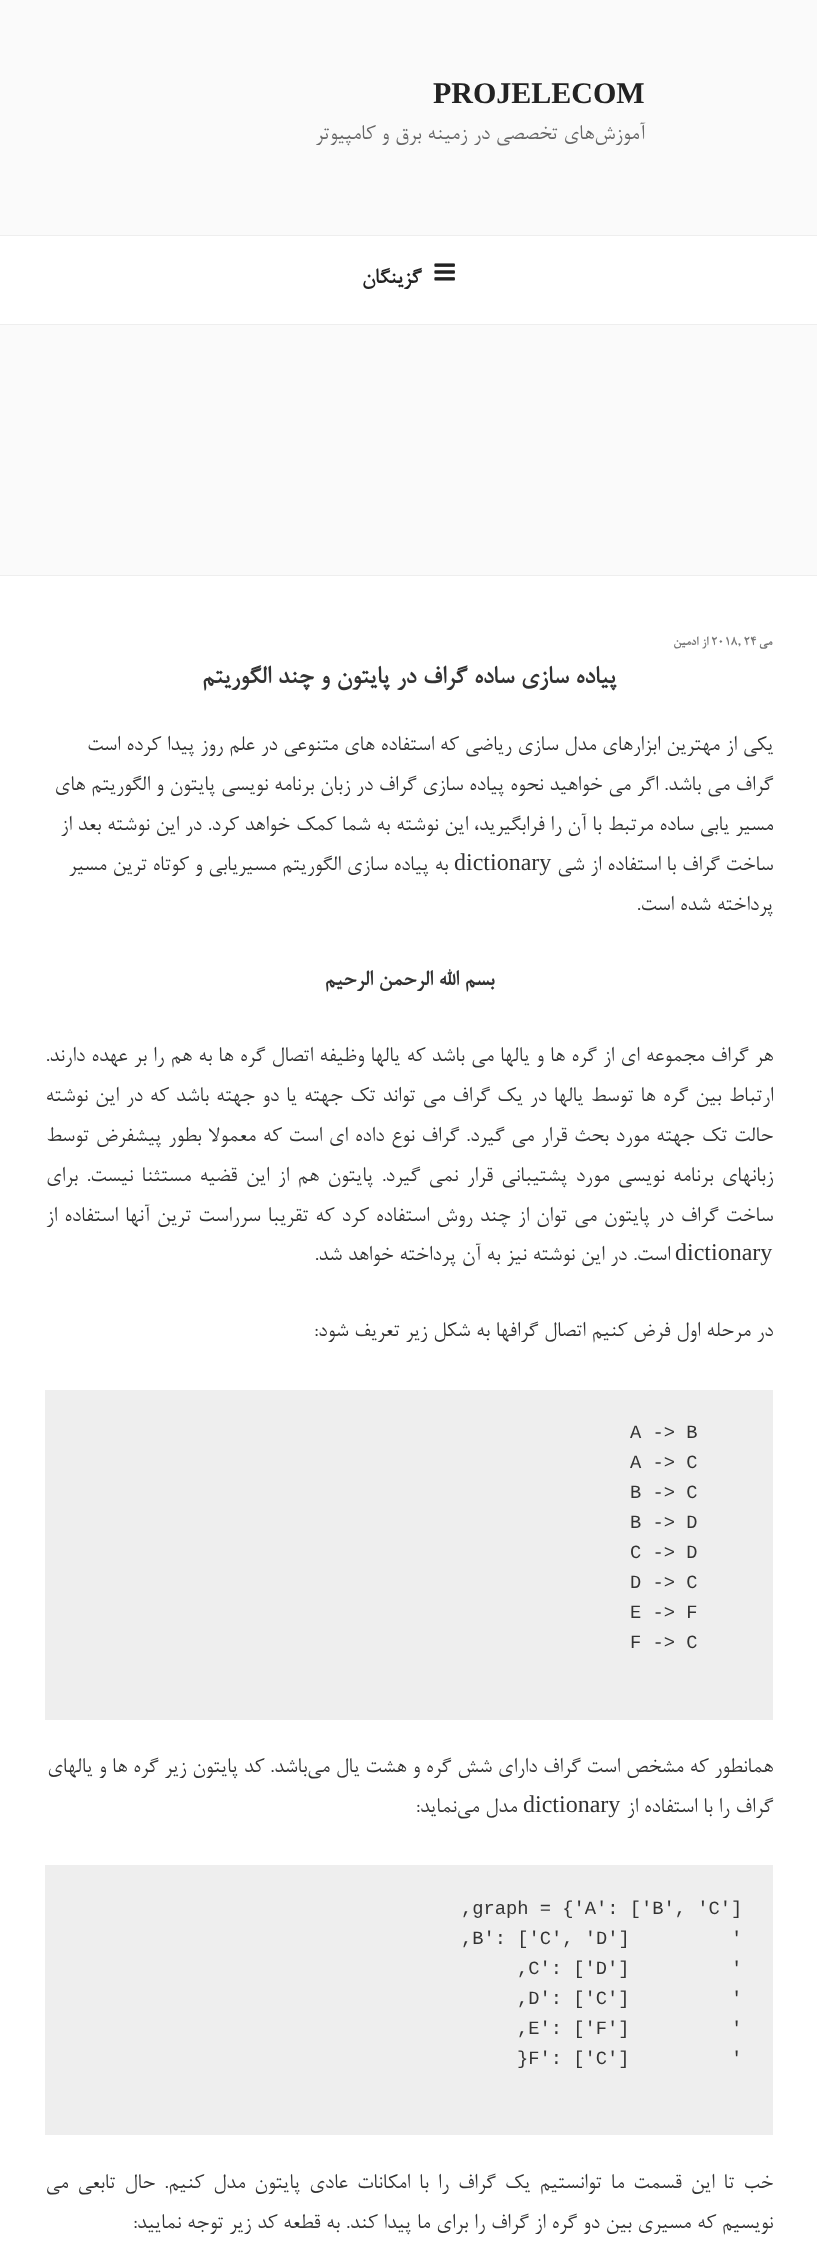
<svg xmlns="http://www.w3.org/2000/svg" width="817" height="2259">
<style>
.a{font:bold 30px Liberation Serif;fill:#222}
.b{font:24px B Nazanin;direction:rtl;fill:#666}
.c{font:bold 24px B Nazanin;direction:rtl;fill:#222}
.d{font:bold 14px B Nazanin;direction:rtl;fill:#767676}
.e{font:bold 14px B Nazanin;fill:#767676}
.f{font:bold 28px B Nazanin;direction:rtl;fill:#333}
.g{font:24px B Nazanin;direction:rtl;fill:#333}
.h{font:24px Liberation Serif;fill:#333}
.i{font:bold 24px B Nazanin;direction:rtl;fill:#333}
.j{font:18.75px Liberation Mono;fill:#333}
</style>
<rect width="100%" height="100%" fill="#fff"/>
<path fill="#fafafa" d="M0 0h817v235H0z"/>
<path fill="#eee" d="M0 235h817v1H0z"/>
<path fill="#eee" d="M0 324h817v1H0z"/>
<image href="1.png" x="434" y="263" width="21" height="18"/>
<path fill="#fafafa" d="M0 325h817v250H0z"/>
<path fill="#eee" d="M0 575h817v1H0z"/>
<path fill="#eee" d="M45 1390h728v330H45z"/>
<path fill="#eee" d="M45 1865h728v270H45z"/>
<text class="a" x="433" y="103">PROJELECOM</text>
<text class="b" x="645" y="139">آموزش‌های تخصصی در زمینه برق و کامپیوتر</text>
<text class="c" x="421" y="283">گزینگان</text>
<text class="d" x="772" y="645">می</text>
<text class="e" x="711" y="645">2018, 24</text>
<text class="d" x="708" y="645">از</text>
<text class="d" x="698" y="645">ادمین</text>
<text class="f" x="616" y="683">پیاده سازی ساده گراف در پایتون و چند الگوریتم</text>
<text class="g" x="773" y="750">یکی از مهترین ابزارهای مدل سازی ریاضی که استفاده های متنوعی در علم روز پیدا کرده است</text>
<text class="g" x="773" y="790">گراف می باشد. اگر می خواهید نحوه پیاده سازی گراف در زبان برنامه نویسی پایتون و الگوریتم های</text>
<text class="g" x="773" y="830">مسیر یابی ساده مرتبط با آن را فرابگیرید، این نوشته به شما کمک خواهد کرد. در این نوشته بعد از</text>
<text class="g" x="773" y="870">ساخت گراف با استفاده از شی</text>
<text class="h" x="454" y="870">dictionary</text>
<text class="g" x="448" y="870">به پیاده سازی الگوریتم مسیریابی و کوتاه ترین مسیر</text>
<text class="g" x="773" y="910">پرداخته شده است.</text>
<text class="i" x="494" y="985">بسم الله الرحمن الرحیم</text>
<text class="g" x="773" y="1061" word-spacing="0.4">هر گراف مجموعه ای از گره ها و یالها می باشد که یالها وظیفه اتصال گره ها به هم را بر عهده دارند.</text>
<text class="g" x="773" y="1101" word-spacing="1.25">ارتباط بین گره ها توسط یالها در یک گراف می تواند تک جهته یا دو جهته باشد که در این نوشته</text>
<text class="g" x="773" y="1141" word-spacing="1">حالت تک جهته مورد بحث قرار می گیرد. گراف نوع داده ای است که معمولا بطور پیشفرض توسط</text>
<text class="g" x="773" y="1181" word-spacing="2.6">زبانهای برنامه نویسی مورد پشتیبانی قرار نمی گیرد. پایتون هم از این قضیه مستثنا نیست. برای</text>
<text class="g" x="773" y="1221" word-spacing="1.3">ساخت گراف در پایتون می توان از چند روش استفاده کرد که تقریبا سرراست ترین آنها استفاده از</text>
<text class="h" x="675" y="1260">dictionary</text>
<text class="g" x="670" y="1260">است. در این نوشته نیز به آن پرداخته خواهد شد.</text>
<text class="g" x="773" y="1336">در مرحله اول فرض کنیم اتصال گرافها به شکل زیر تعریف شود:</text>
<text class="j" x="630" y="1438">A -&gt; B</text>
<text class="j" x="630" y="1468">A -&gt; C</text>
<text class="j" x="630" y="1498">B -&gt; C</text>
<text class="j" x="630" y="1528">B -&gt; D</text>
<text class="j" x="630" y="1558">C -&gt; D</text>
<text class="j" x="630" y="1588">D -&gt; C</text>
<text class="j" x="630" y="1618">E -&gt; F</text>
<text class="j" x="630" y="1648">F -&gt; C</text>
<text class="g" x="773" y="1772">همانطور که مشخص است گراف دارای شش گره و هشت یال می‌باشد. کد پایتون زیر گره ها و یالهای</text>
<text class="g" x="773" y="1812">گراف را با استفاده از</text>
<text class="h" x="523" y="1812">dictionary</text>
<text class="g" x="517" y="1812">مدل می‌نماید:</text>
<text class="j" x="461" y="1914">,graph = {'A': ['B', 'C']</text>
<text class="j" x="731" y="1944">'</text>
<text class="j" x="461" y="1944">,B': ['C', 'D']</text>
<text class="j" x="731" y="1974">'</text>
<text class="j" x="517" y="1974">,C': ['D']</text>
<text class="j" x="731" y="2004">'</text>
<text class="j" x="517" y="2004">,D': ['C']</text>
<text class="j" x="731" y="2034">'</text>
<text class="j" x="517" y="2034">,E': ['F']</text>
<text class="j" x="731" y="2064">'</text>
<text class="j" x="517" y="2064">}F': ['C']</text>
<text class="g" x="773" y="2188" word-spacing="3.25">خب تا این قسمت ما توانستیم یک گراف را با امکانات عادی پایتون مدل کنیم. حال تابعی می</text>
<text class="g" x="773" y="2228">نویسیم که مسیری بین دو گره از گراف را برای ما پیدا کند. به قطعه کد زیر توجه نمایید:</text>
</svg>
